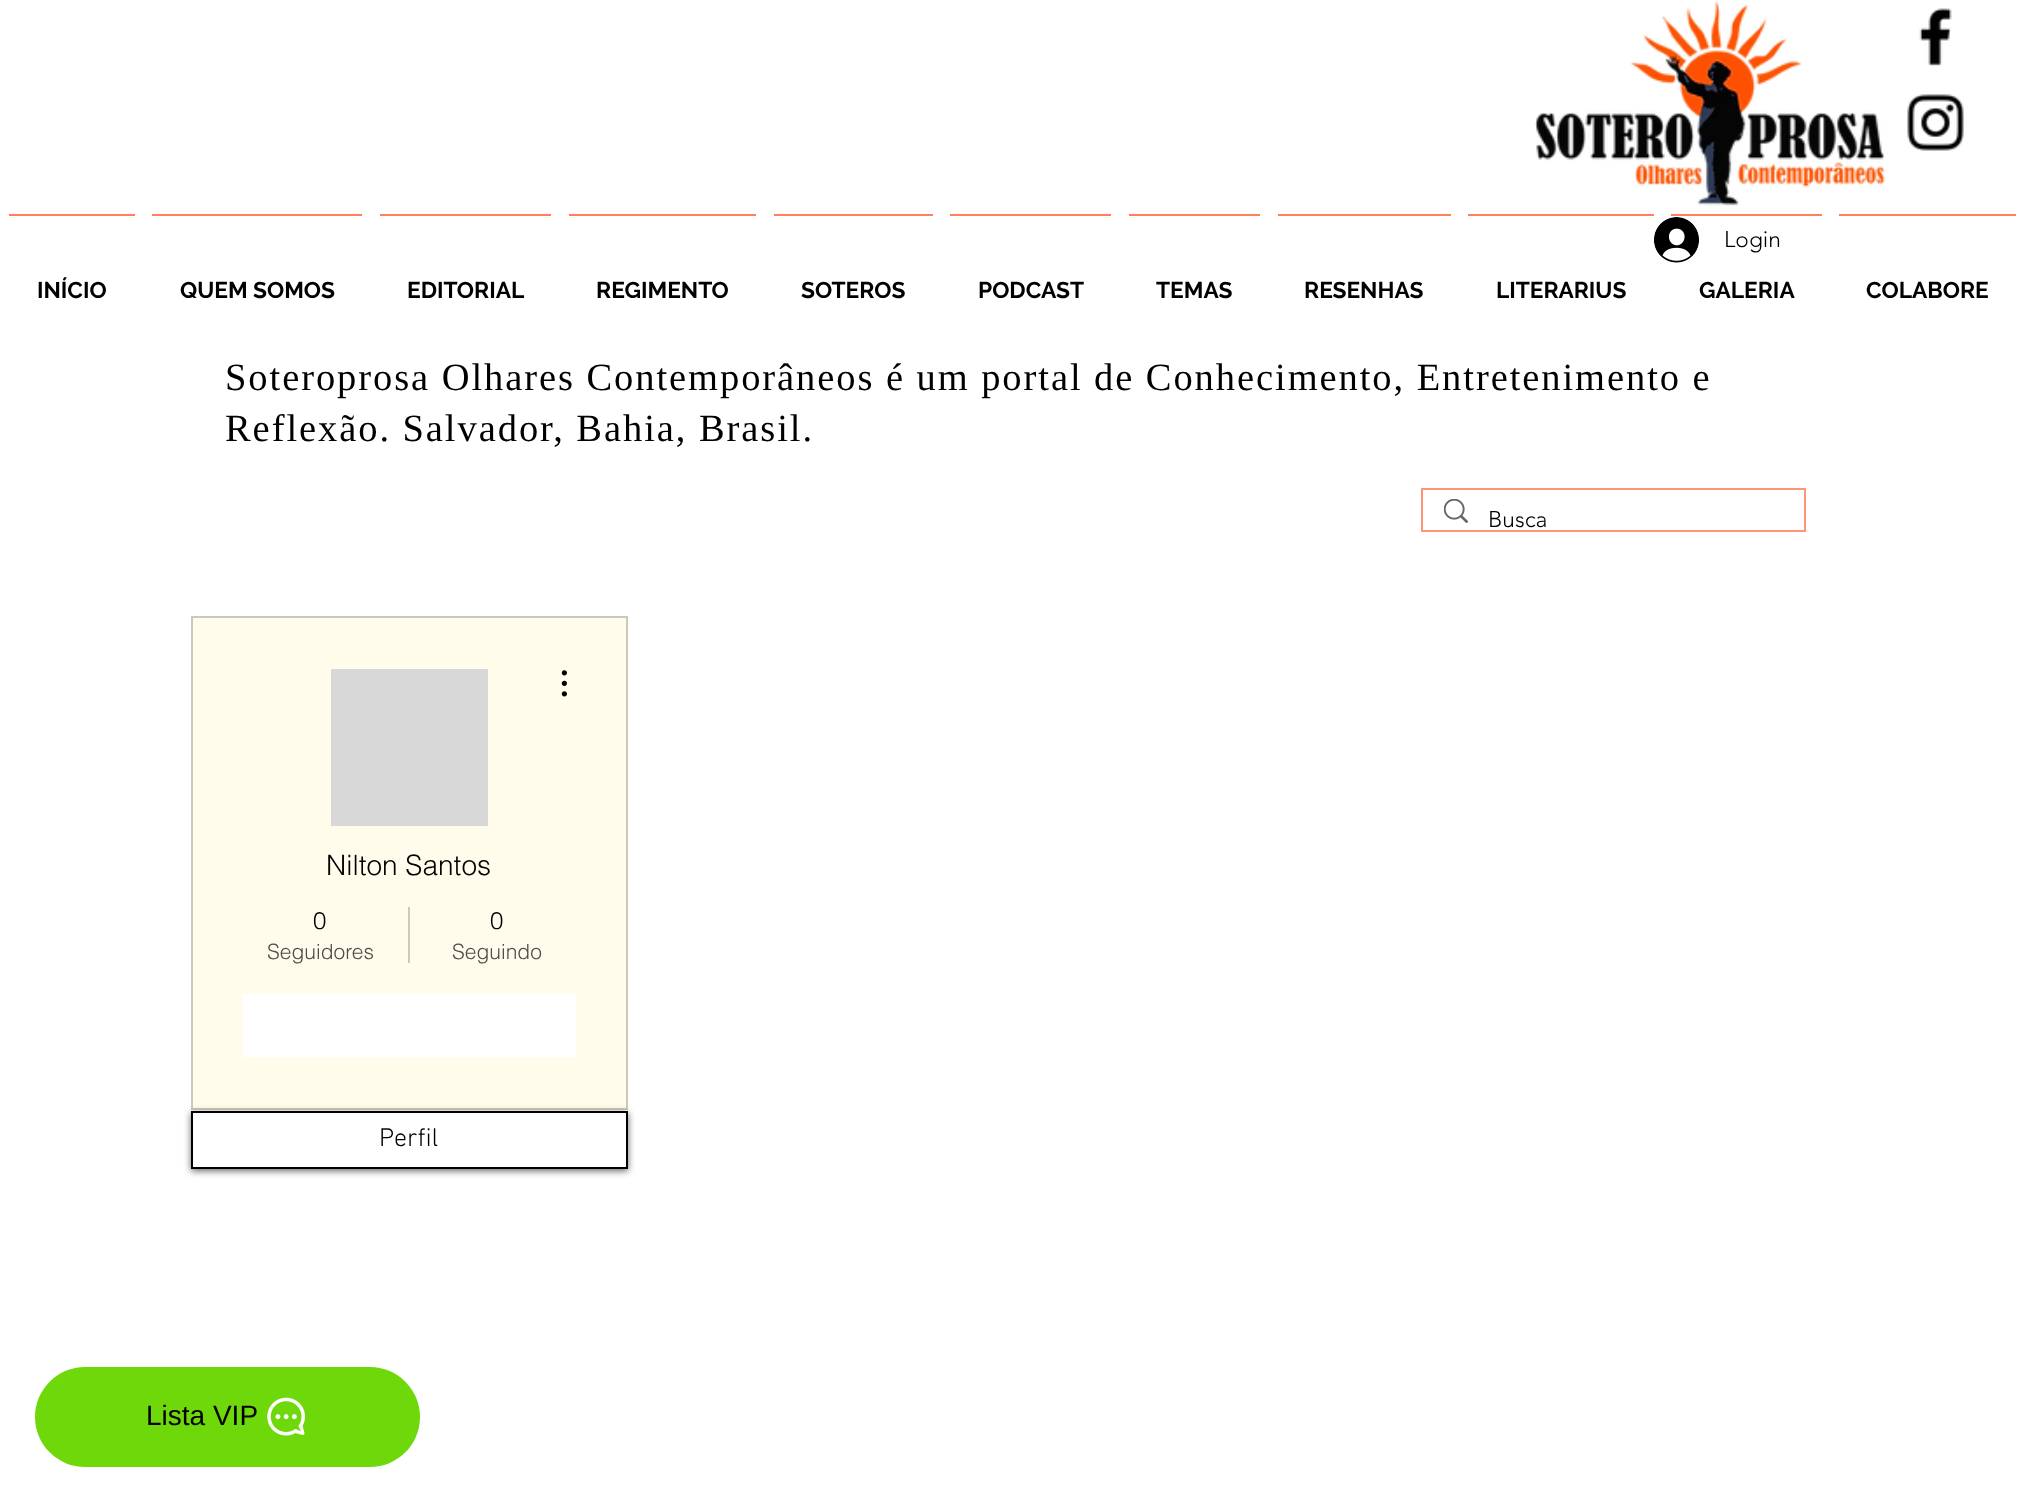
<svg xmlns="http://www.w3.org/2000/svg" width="2024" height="1501">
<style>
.a{font:300 22.75px 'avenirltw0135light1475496';fill:#000}
.b{font:bold 22.75px Raleway;fill:#000}
.c{font:38.5px Liberation Serif;letter-spacing:1.93px;fill:#000}
.d{font:300 28px helvetica;fill:#000}
.e{font:300 24px helvetica;fill:#000}
.f{font:300 21px helvetica;fill:#4d4c47}
.g{font:300 26px 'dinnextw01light';fill:#000}
.h{font:28px Liberation Sans;fill:#000}
</style>
<defs>
<clipPath id="clip1"><path d="M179 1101h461v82h-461zm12 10h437v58h-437z" clip-rule="evenodd"/></clipPath>
</defs>
<rect width="100%" height="100%" fill="#fff"/>
<image href="1.png" x="1535" y="1" width="351" height="205"/>
<image href="2.png" x="1919" y="8" width="33" height="58"/>
<image href="3.png" x="1907" y="94" width="57" height="57"/>
<image href="4.png" x="1654" y="217" width="45" height="46"/>
<path fill="#ff815b" d="M9 214h126v2H9z"/>
<path fill="#ff815b" d="M152 214h210v2H152z"/>
<path fill="#ff815b" d="M380 214h171v2H380z"/>
<path fill="#ff815b" d="M569 214h187v2H569z"/>
<path fill="#ff815b" d="M774 214h159v2H774z"/>
<path fill="#ff815b" d="M950 214h161v2H950z"/>
<path fill="#ff815b" d="M1129 214h131v2H1129z"/>
<path fill="#ff815b" d="M1278 214h173v2H1278z"/>
<path fill="#ff815b" d="M1468 214h186v2H1468z"/>
<path fill="#ff815b" d="M1671 214h151v2H1671z"/>
<path fill="#ff815b" d="M1839 214h177v2H1839z"/>
<path fill="none" stroke="#fd9576" stroke-width="2" d="M1422 489h383v42H1422z"/>
<image href="5.png" x="1444" y="499" width="24" height="24"/>
<path fill="#fffcec" d="M191 616h437v494H191z"/>
<g clip-path="url(#clip1)">
<path fill="#00000099" filter="blur(3.5px)" d="M191 1113h437v58H191z"/>
</g>
<path fill="none" stroke="#00000033" stroke-width="2" d="M192 617h435v492H192z"/>
<path fill="#d8d8d8" d="M331 669h157v157H331z"/>
<image href="6.png" x="561" y="670" width="6" height="27"/>
<path fill="#cccabd" d="M408 907h2v56H408z"/>
<path fill="#fff" d="M243 994h333v63H243z"/>
<path fill="none" stroke="#000" stroke-width="2" d="M192 1112h435v56H192z"/>
<rect fill="#6fd80b" x="35" y="1367" width="385" height="100" rx="50"/>
<image href="7.png" x="267" y="1397" width="38" height="39"/>
<text class="a" x="1724" y="247">Login</text>
<text class="b" x="37" y="298">INÍCIO</text>
<text class="b" x="180" y="298">QUEM SOMOS</text>
<text class="b" x="407" y="298">EDITORIAL</text>
<text class="b" x="596" y="298">REGIMENTO</text>
<text class="b" x="801" y="298">SOTEROS</text>
<text class="b" x="978" y="298">PODCAST</text>
<text class="b" x="1156" y="298">TEMAS</text>
<text class="b" x="1304" y="298">RESENHAS</text>
<text class="b" x="1496" y="298">LITERARIUS</text>
<text class="b" x="1699" y="298">GALERIA</text>
<text class="b" x="1866" y="298">COLABORE</text>
<text class="c" x="225" y="390">Soteroprosa Olhares Contemporâneos é um portal de Conhecimento, Entretenimento e</text>
<text class="c" x="225" y="441">Reflexão. Salvador, Bahia, Brasil.</text>
<text class="a" x="1488" y="527">Busca</text>
<text class="d" x="326" y="875">Nilton Santos</text>
<text class="e" x="313" y="929">0</text>
<text class="f" x="267" y="959">Seguidores</text>
<text class="e" x="490" y="929">0</text>
<text class="f" x="452" y="959">Seguindo</text>
<text class="g" x="379" y="1146">Perfil</text>
<text class="h" x="146" y="1425">Lista VIP</text>
</svg>
